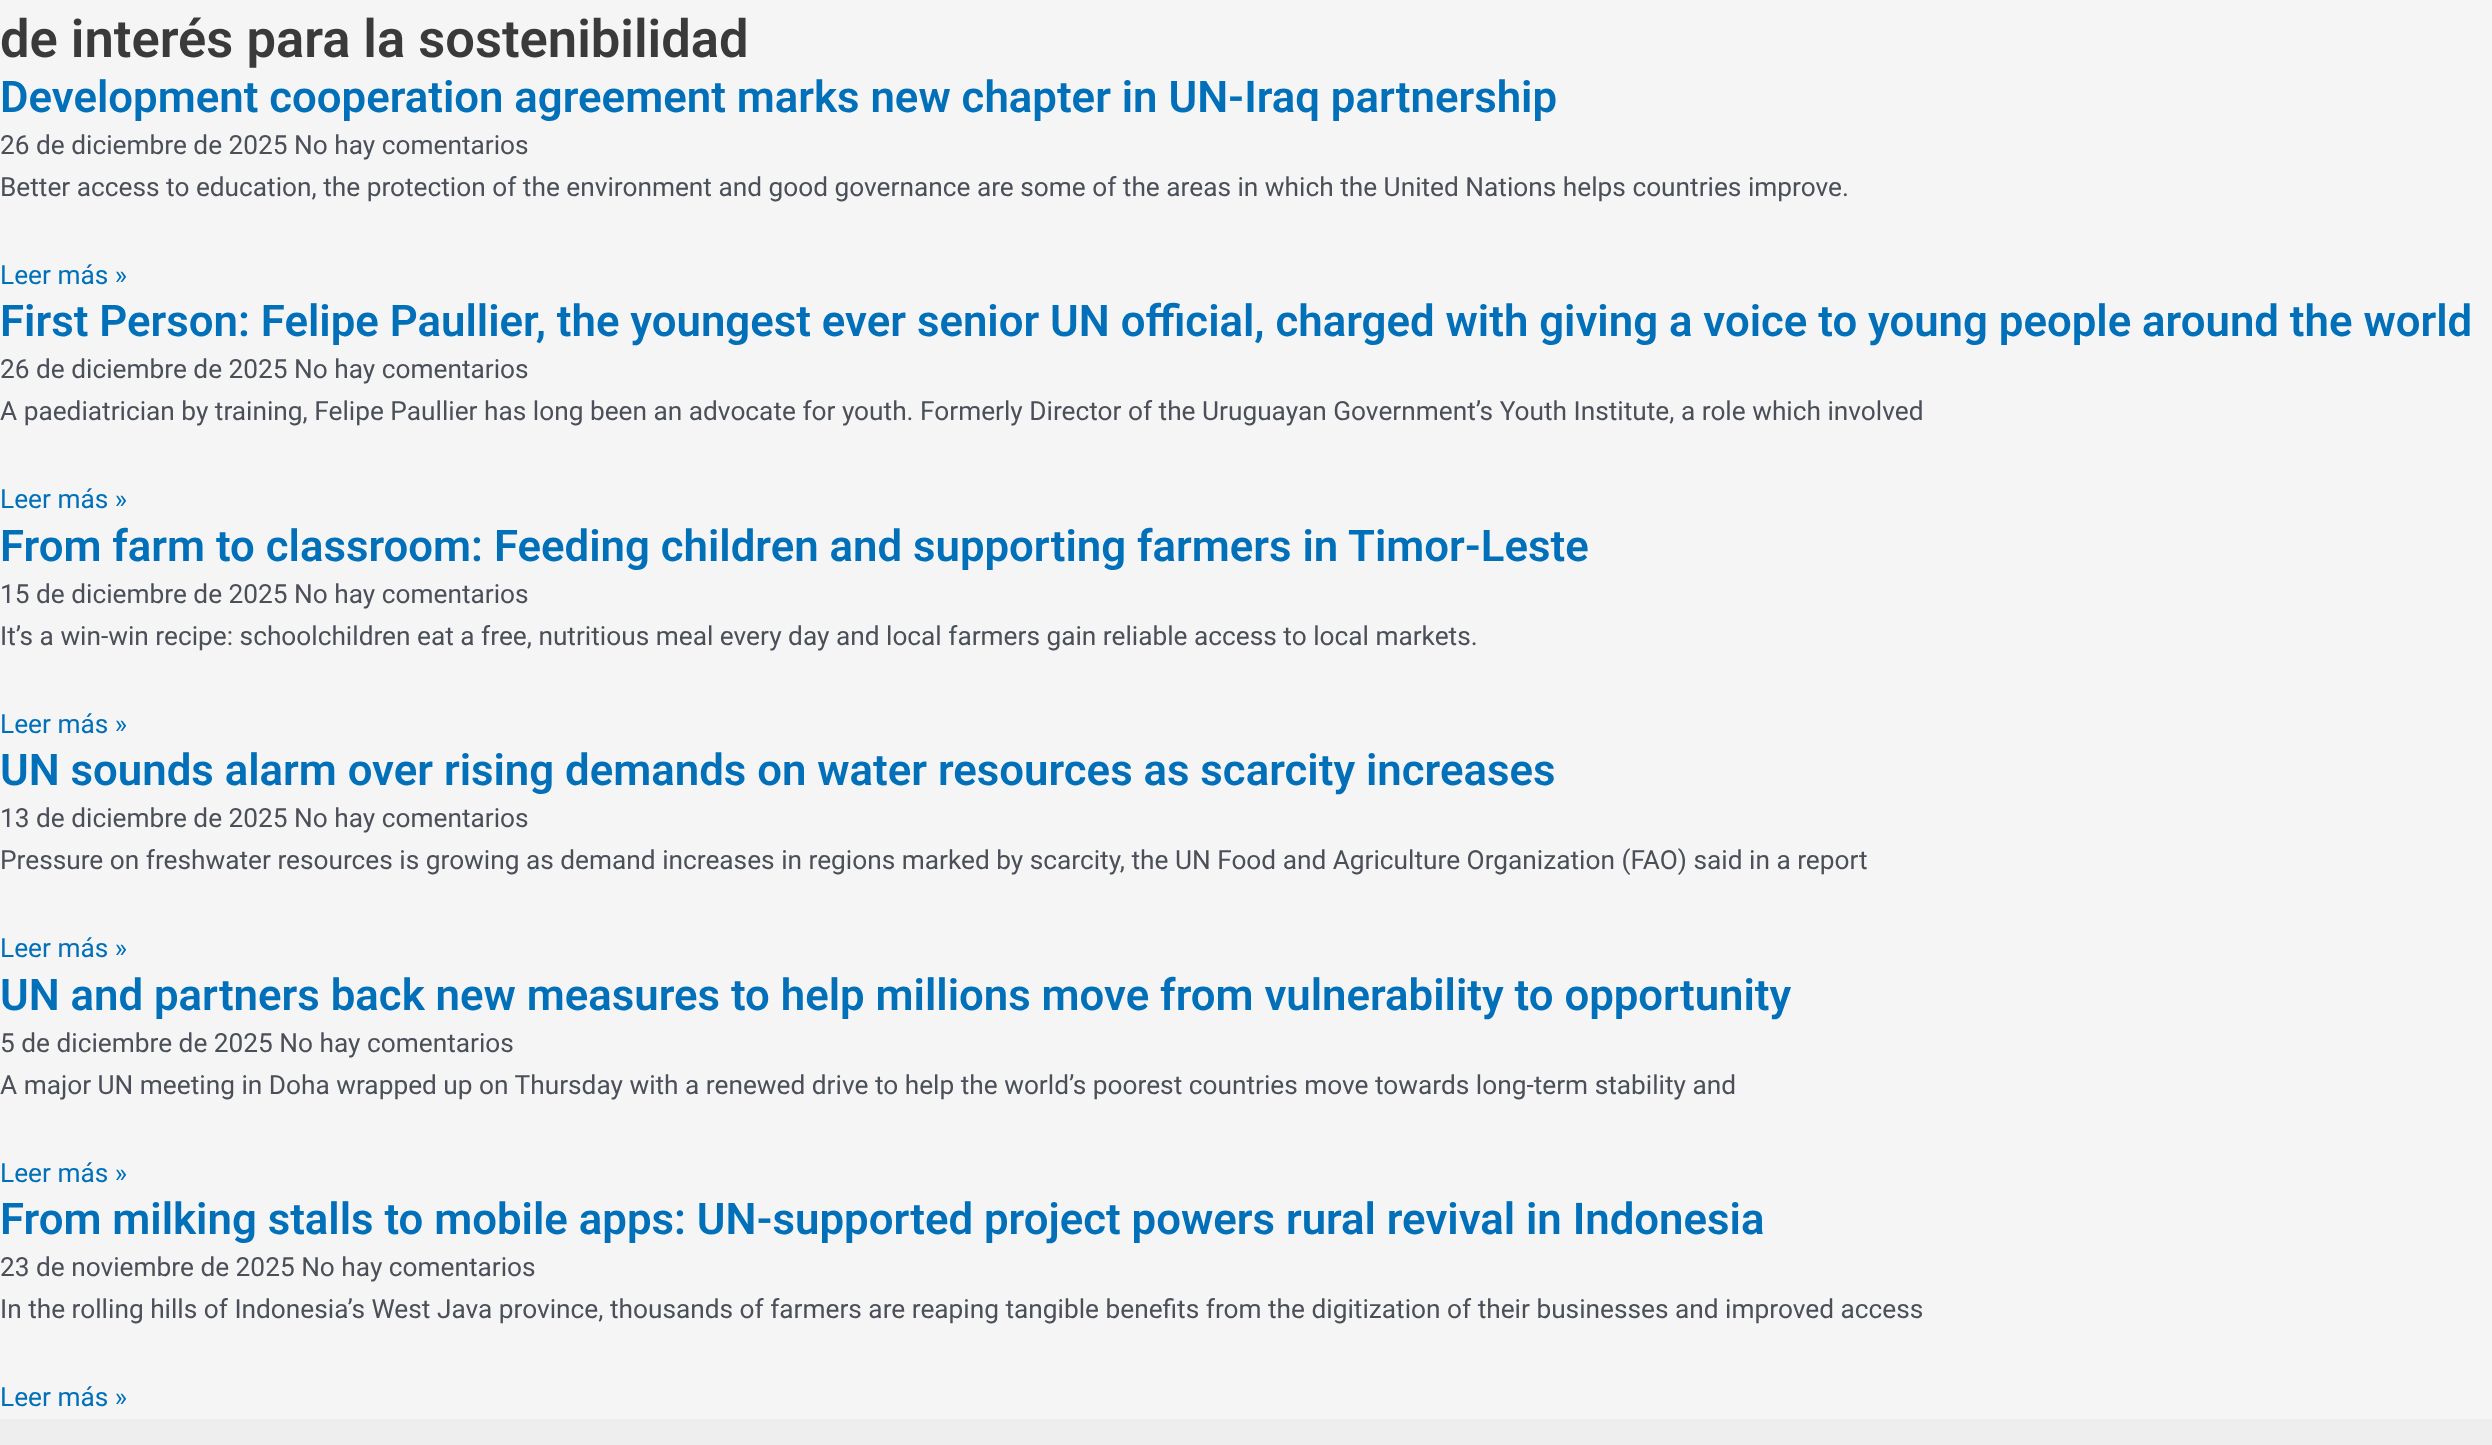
<svg xmlns="http://www.w3.org/2000/svg" width="2492" height="1445">
<style>
.a{font:600 52.5px Roboto;fill:#3a3a3a}
.b{font:600 43.75px Roboto;fill:#0170b9}
.c{font:26.25px Roboto;fill:#4b4f58}
.d{font:26.25px Roboto;fill:#0170b9}
</style>
<rect width="100%" height="100%" fill="#f5f5f5"/>
<path fill="#eee" d="M0 1419h2492v26H0z"/>
<text class="a" x="0" y="57">de interés para la sostenibilidad</text>
<text class="b" x="0" y="112">Development cooperation agreement marks new chapter in UN-Iraq partnership</text>
<text class="c" x="0" y="154">26 de diciembre de 2025 No hay comentarios</text>
<text class="c" x="0" y="196">Better access to education, the protection of the environment and good governance are some of the areas in which the United Nations helps countries improve.</text>
<text class="d" x="0" y="284">Leer más »</text>
<text class="b" x="0" y="336">First Person: Felipe Paullier, the youngest ever senior UN official, charged with giving a voice to young people around the world</text>
<text class="c" x="0" y="378">26 de diciembre de 2025 No hay comentarios</text>
<text class="c" x="0" y="420">A paediatrician by training, Felipe Paullier has long been an advocate for youth. Formerly Director of the Uruguayan Government’s Youth Institute, a role which involved</text>
<text class="d" x="0" y="508">Leer más »</text>
<text class="b" x="0" y="561">From farm to classroom: Feeding children and supporting farmers in Timor-Leste</text>
<text class="c" x="0" y="603">15 de diciembre de 2025 No hay comentarios</text>
<text class="c" x="0" y="645">It’s a win-win recipe: schoolchildren eat a free, nutritious meal every day and local farmers gain reliable access to local markets.</text>
<text class="d" x="0" y="733">Leer más »</text>
<text class="b" x="0" y="785">UN sounds alarm over rising demands on water resources as scarcity increases</text>
<text class="c" x="0" y="827">13 de diciembre de 2025 No hay comentarios</text>
<text class="c" x="0" y="869">Pressure on freshwater resources is growing as demand increases in regions marked by scarcity, the UN Food and Agriculture Organization (FAO) said in a report</text>
<text class="d" x="0" y="957">Leer más »</text>
<text class="b" x="0" y="1010">UN and partners back new measures to help millions move from vulnerability to opportunity</text>
<text class="c" x="0" y="1052">5 de diciembre de 2025 No hay comentarios</text>
<text class="c" x="0" y="1094">A major UN meeting in Doha wrapped up on Thursday with a renewed drive to help the world’s poorest countries move towards long-term stability and</text>
<text class="d" x="0" y="1182">Leer más »</text>
<text class="b" x="0" y="1234">From milking stalls to mobile apps: UN-supported project powers rural revival in Indonesia</text>
<text class="c" x="0" y="1276">23 de noviembre de 2025 No hay comentarios</text>
<text class="c" x="0" y="1318">In the rolling hills of Indonesia’s West Java province, thousands of farmers are reaping tangible benefits from the digitization of their businesses and improved access</text>
<text class="d" x="0" y="1406">Leer más »</text>
</svg>
